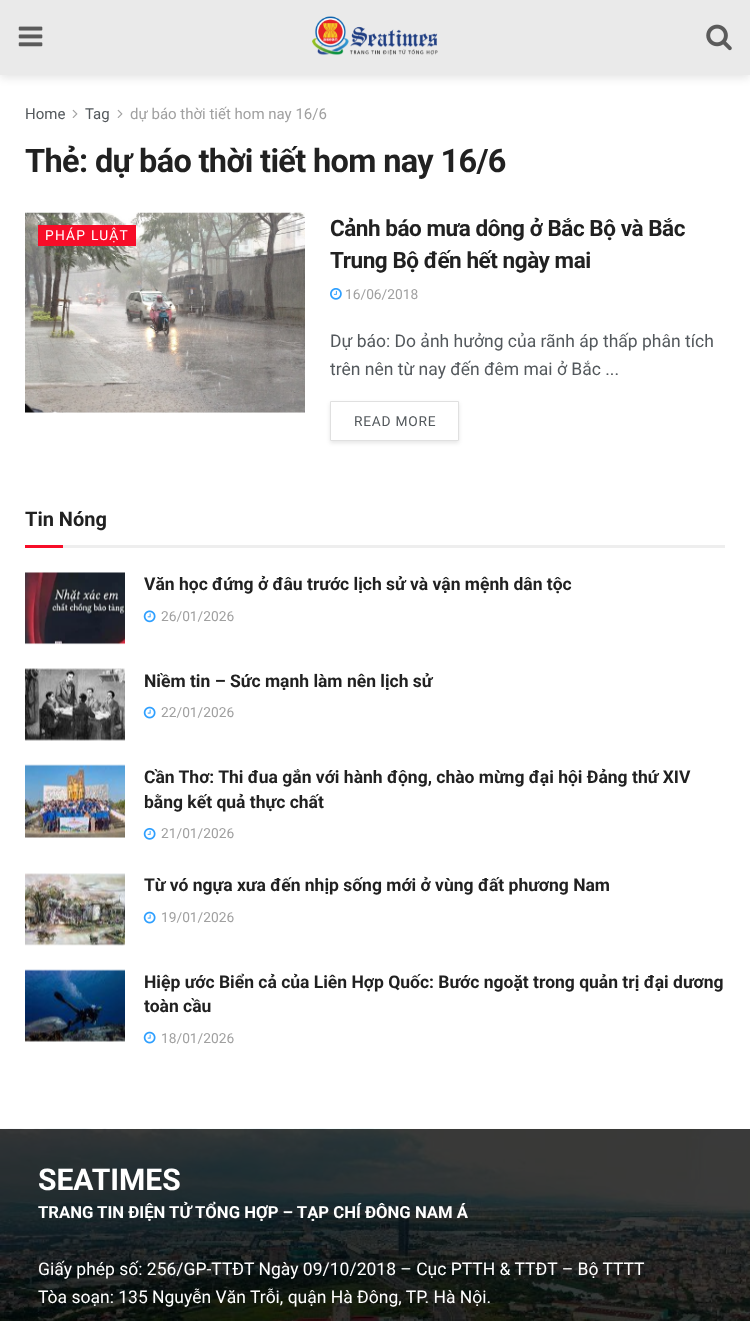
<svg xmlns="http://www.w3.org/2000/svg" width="750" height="1321">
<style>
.a{font:15px Roboto;fill:#53585c}
.b{font:15px Roboto;fill:#a0a0a0}
.c{font:bold 32.5px Roboto;letter-spacing:-0.65px;fill:#212121}
.d{font:13.75px Roboto;letter-spacing:1.25px;fill:#fff}
.e{font:bold 22.5px Roboto;letter-spacing:-0.45px;fill:#212121}
.f{font:13.75px Roboto;fill:#a0a0a0}
.g{font:17.5px Roboto;fill:#53585c}
.h{font:13.75px Roboto;letter-spacing:0.75px;fill:#53585c}
.i{font:bold 20px Roboto;fill:#212121}
.j{font:bold 17.5px Roboto;fill:#212121}
.k{font:bold 30px Roboto;fill:#fff}
.l{font:bold 16.7px Roboto;fill:#fff}
.m{font:17.5px Roboto;fill:#fff}
</style>
<defs>
<clipPath id="clip1"><path d="M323 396h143v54h-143zm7 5h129v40h-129z" clip-rule="evenodd"/></clipPath>
</defs>
<rect width="100%" height="100%" fill="#fff"/>
<path fill="#0000001a" filter="blur(4px)" d="M0 3h750v75H0z"/>
<path fill="#eaeaea" d="M0 0h750v75H0z"/>
<image href="1.png" x="18" y="26" width="25" height="21"/>
<image href="2.png" x="311" y="16" width="127" height="40"/>
<image href="3.png" x="706" y="24" width="26" height="27"/>
<image href="4.png" x="72" y="109" width="6" height="9"/>
<image href="4.png" x="117" y="109" width="6" height="9"/>
<path fill="#f7f7f7" d="M25 412h280v1H25z"/>
<image href="6.png" x="179" y="212" width="56" height="1"/>
<image href="5.png" x="25" y="212" width="280" height="201"/>
<path fill="#f70d28" d="M38 225h98v21H38z"/>
<image href="7.png" x="330" y="288" width="12" height="12"/>
<g clip-path="url(#clip1)">
<path fill="#0000001a" filter="blur(2px)" d="M330 403h129v40H330z"/>
</g>
<path fill="none" stroke="#e0e0e0" d="M330.5 401.5h128v39H330.5z"/>
<path fill="#eee" d="M63 545h662v3H63z"/>
<path fill="#f70d28" d="M25 545h38v3H25z"/>
<image href="8.png" x="25" y="572" width="100" height="72"/>
<image href="9.png" x="25" y="572" width="100" height="73"/>
<image href="10.png" x="143" y="610" width="13" height="13"/>
<image href="12.png" x="80" y="668" width="20" height="72"/>
<image href="11.png" x="25" y="668" width="100" height="73"/>
<image href="13.png" x="143" y="706" width="13" height="13"/>
<path fill="#f7f7f7" d="M25 765h100v73H25z"/>
<image href="15.png" x="80" y="765" width="20" height="73"/>
<image href="14.png" x="25" y="764" width="100" height="74"/>
<image href="16.png" x="143" y="827" width="13" height="13"/>
<path fill="#f7f7f7" d="M25 874h100v71H25z"/>
<image href="12.png" x="80" y="873" width="20" height="72"/>
<image href="17.png" x="25" y="873" width="100" height="73"/>
<image href="13.png" x="143" y="911" width="13" height="13"/>
<path fill="#f7f7f7" d="M25 970h100v71H25z"/>
<image href="19.png" x="80" y="970" width="20" height="72"/>
<image href="18.png" x="25" y="969" width="100" height="73"/>
<image href="13.png" x="143" y="1031" width="13" height="13"/>
<image href="20.png" x="0" y="1128" width="750" height="193"/>
<text class="a" x="25" y="119">Home</text>
<text class="a" x="85" y="119">Tag</text>
<text class="b" x="130" y="119">dự báo thời tiết hom nay 16/6</text>
<text class="c" x="25" y="172">Thẻ: dự báo thời tiết hom nay 16/6</text>
<text class="d" x="45" y="240">PHÁP LUẬT</text>
<text class="e" x="330" y="236">Cảnh báo mưa dông ở Bắc Bộ và Bắc</text>
<text class="e" x="330" y="268">Trung Bộ đến hết ngày mai</text>
<text class="f" x="345" y="299">16/06/2018</text>
<text class="g" x="330" y="347">Dự báo: Do ảnh hưởng của rãnh áp thấp phân tích</text>
<text class="g" x="330" y="375">trên nên từ nay đến đêm mai ở Bắc ...</text>
<text class="h" x="354" y="426">READ MORE</text>
<text class="i" x="25" y="526">Tin Nóng</text>
<text class="j" x="144" y="590">Văn học đứng ở đâu trước lịch sử và vận mệnh dân tộc</text>
<text class="f" x="161" y="621">26/01/2026</text>
<text class="j" x="144" y="687">Niềm tin – Sức mạnh làm nên lịch sử</text>
<text class="f" x="161" y="717">22/01/2026</text>
<text class="j" x="144" y="783">Cần Thơ: Thi đua gắn với hành động, chào mừng đại hội Đảng thứ XIV</text>
<text class="j" x="144" y="808">bằng kết quả thực chất</text>
<text class="f" x="161" y="838">21/01/2026</text>
<text class="j" x="144" y="891">Từ vó ngựa xưa đến nhịp sống mới ở vùng đất phương Nam</text>
<text class="f" x="161" y="922">19/01/2026</text>
<text class="j" x="144" y="988">Hiệp ước Biển cả của Liên Hợp Quốc: Bước ngoặt trong quản trị đại dương</text>
<text class="j" x="144" y="1012">toàn cầu</text>
<text class="f" x="161" y="1043">18/01/2026</text>
<text class="k" x="38" y="1190">SEATIMES</text>
<text class="l" x="38" y="1218">TRANG TIN ĐIỆN TỬ TỔNG HỢP – TẠP CHÍ ĐÔNG NAM Á</text>
<text class="m" x="38" y="1275">Giấy phép số: 256/GP-TTĐT Ngày 09/10/2018 – Cục PTTH &amp; TTĐT – Bộ TTTT</text>
<text class="m" x="38" y="1303">Tòa soạn: 135 Nguyễn Văn Trỗi, quận Hà Đông, TP. Hà Nội.</text>
</svg>
